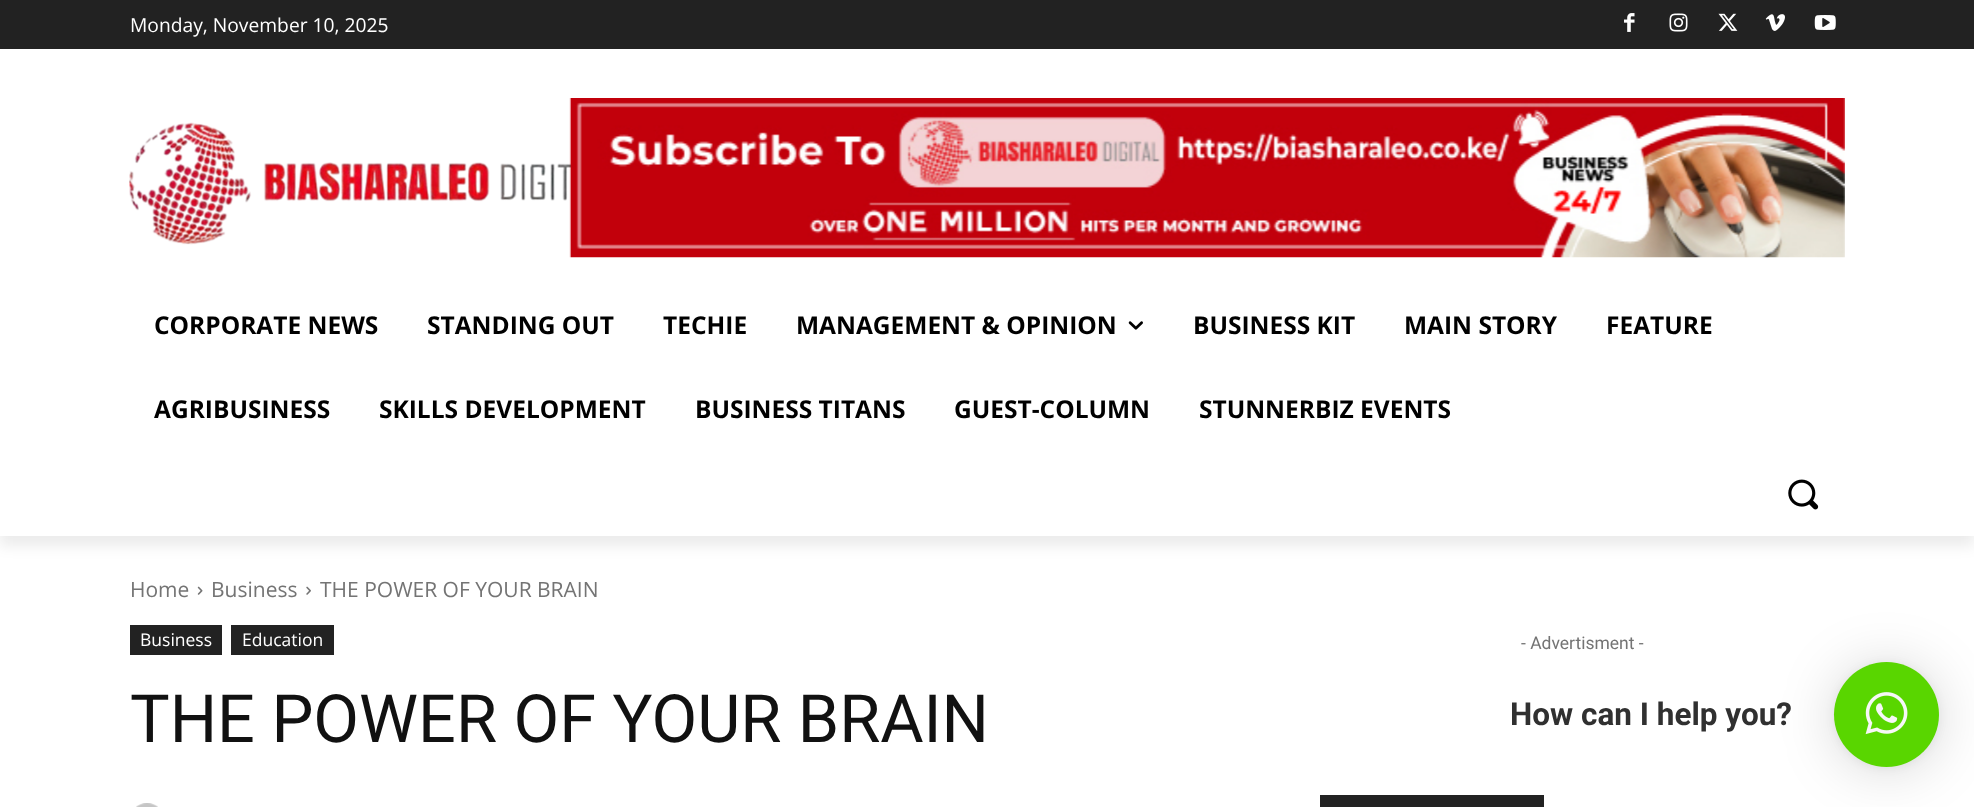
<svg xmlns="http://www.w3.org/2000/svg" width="1974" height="807">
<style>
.a{font:19.25px Open Sans;fill:#fff}
.b{font:bold 24.5px Open Sans;fill:#000}
.c{font:21px Open Sans;fill:#747474}
.d{font:17.5px Open Sans;fill:#fff}
.e{font:66.5px Roboto;fill:#111}
.f{font:17.5px Roboto;fill:#747474}
.g{font:bold 31.5px Roboto;fill:#303030}
</style>
<defs>
<clipPath id="clip1"><path d="M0 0h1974v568h-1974zm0 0h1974v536h-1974z" clip-rule="evenodd"/></clipPath>
</defs>
<rect width="100%" height="100%" fill="#fff"/>
<path fill="#222" d="M0 0h1974v49H0z"/>
<image href="1.png" x="1624" y="13" width="11" height="19"/>
<image href="2.png" x="1669" y="13" width="19" height="19"/>
<image href="3.png" x="1718" y="13" width="20" height="18"/>
<image href="4.png" x="1765" y="14" width="20" height="17"/>
<image href="5.png" x="1814" y="15" width="22" height="15"/>
<image href="6.png" x="129" y="122" width="442" height="123"/>
<image href="7.png" x="569" y="98" width="1276" height="160"/>
<g clip-path="url(#clip1)">
<path fill="#00000014" filter="blur(7px)" d="M0 11h1974v535H0z"/>
</g>
<image href="8.png" x="1128" y="321" width="15" height="9"/>
<image href="9.png" x="1788" y="479" width="31" height="31"/>
<image href="10.png" x="197" y="586" width="6" height="9"/>
<image href="11.png" x="306" y="586" width="5" height="9"/>
<path fill="#222" d="M130 625h92v30H130z"/>
<path fill="#222" d="M231 625h103v30H231z"/>
<image href="12.png" x="136" y="803" width="22" height="4"/>
<path fill="#222" d="M1320 795h224v12H1320z"/>
<rect fill="#00000029" filter="blur(28px)" x="1834" y="665" width="105" height="105" rx="52.5"/>
<rect fill="#0000000f" filter="blur(5px)" x="1834" y="663" width="105" height="105" rx="52.5"/>
<circle fill="#59d600" cx="1886.5" cy="714.5" r="52.5"/>
<image href="13.png" x="1865" y="692" width="43" height="43"/>
<text class="a" x="130" y="32">Monday, November 10, 2025</text>
<text class="b" x="154" y="334">CORPORATE NEWS</text>
<text class="b" x="427" y="334">STANDING OUT</text>
<text class="b" x="663" y="334">TECHIE</text>
<text class="b" x="796" y="334">MANAGEMENT &amp; OPINION</text>
<text class="b" x="1193" y="334">BUSINESS KIT</text>
<text class="b" x="1404" y="334">MAIN STORY</text>
<text class="b" x="1606" y="334">FEATURE</text>
<text class="b" x="154" y="418">AGRIBUSINESS</text>
<text class="b" x="379" y="418">SKILLS DEVELOPMENT</text>
<text class="b" x="695" y="418">BUSINESS TITANS</text>
<text class="b" x="954" y="418">GUEST-COLUMN</text>
<text class="b" x="1199" y="418">STUNNERBIZ EVENTS</text>
<text class="c" x="130" y="597">Home</text>
<text class="c" x="211" y="597">Business</text>
<text class="c" x="320" y="597">THE POWER OF YOUR BRAIN</text>
<text class="d" x="140" y="646">Business</text>
<text class="d" x="242" y="646">Education</text>
<text class="e" x="130" y="742">THE POWER OF YOUR BRAIN</text>
<text class="f" x="1521" y="649">- Advertisment -</text>
<text class="g" x="1510" y="725">How can I help you?</text>
</svg>
